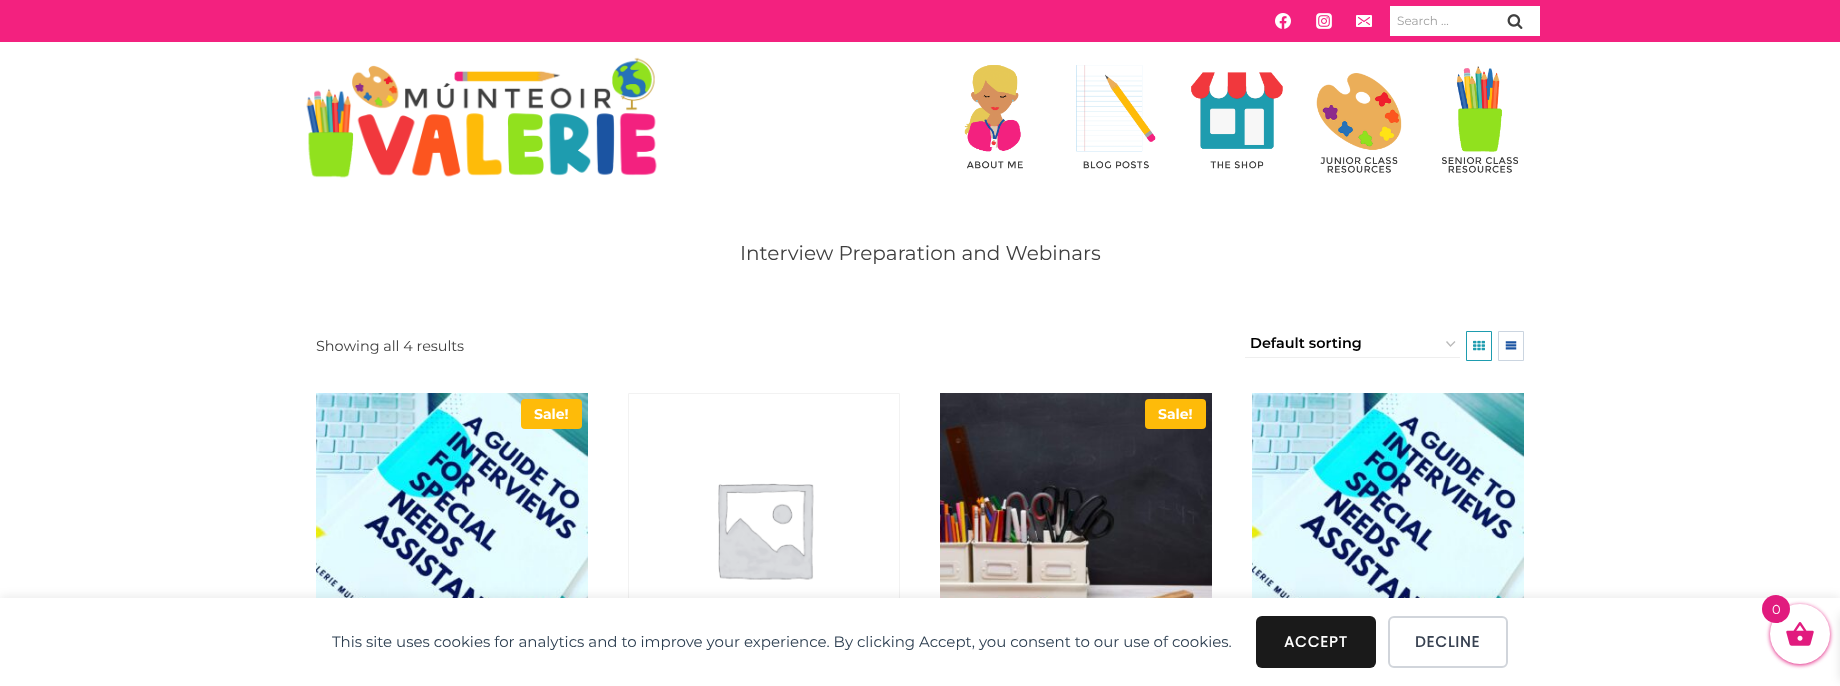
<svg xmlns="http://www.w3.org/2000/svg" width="1840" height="686">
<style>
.a{font:12px Montserrat;fill:#9f9f9f}
.b{font:20px Montserrat;fill:#3f3f3f}
.c{font:14.4px Montserrat;fill:#3f3f3f}
.d{font:600 14.4px Montserrat;fill:#000}
.e{font:bold 14px Montserrat;fill:#fff}
.f{font:13px Montserrat;fill:#fff}
.g{font:15px Montserrat;fill:#2c3e50}
.h{font:bold 15px Poppins;letter-spacing:1px;fill:#fff}
.i{font:bold 15px Poppins;letter-spacing:1px;fill:#374151}
</style>
<rect width="100%" height="100%" fill="#fff"/>
<path fill="#f3217f" d="M0 0h1840v42H0z"/>
<image href="1.png" x="1275" y="13" width="16" height="16"/>
<image href="2.png" x="1316" y="13" width="16" height="16"/>
<image href="3.png" x="1356" y="15" width="16" height="12"/>
<path fill="#fff" d="M1390 6h150v30H1390z"/>
<image href="4.png" x="1507" y="14" width="16" height="15"/>
<image href="5.png" x="306" y="57" width="351" height="121"/>
<image href="6.png" x="964" y="65" width="59" height="104"/>
<image href="7.png" x="1076" y="65" width="80" height="104"/>
<image href="8.png" x="1191" y="72" width="92" height="97"/>
<image href="9.png" x="1316" y="73" width="86" height="100"/>
<image href="10.png" x="1442" y="66" width="76" height="107"/>
<path fill="none" stroke="#bbb" stroke-width="1.4" d="M1446.5 341.5l4 4.5l4.5-4.5"/>
<path fill="#eee" d="M1245 357h215v1H1245z"/>
<path fill="none" stroke="#1e9caf" d="M1466.5 331.5h25v29H1466.5z"/>
<image href="11.png" x="1473" y="340" width="12" height="11"/>
<path fill="none" stroke="#cbd5e0" d="M1498.5 331.5h25v29H1498.5z"/>
<image href="12.png" x="1505" y="341" width="12" height="9"/>
<image href="13.png" x="316" y="393" width="272" height="205"/>
<rect fill="#febb09" x="521" y="399" width="61" height="30" rx="4"/>
<path fill="none" stroke="#f2f2f2" d="M628.5 393.5h271v271H628.5z"/>
<image href="14.png" x="718" y="483" width="96" height="97"/>
<image href="15.png" x="940" y="393" width="272" height="205"/>
<rect fill="#febb09" x="1145" y="399" width="61" height="30" rx="4"/>
<image href="16.png" x="1252" y="393" width="272" height="205"/>
<path fill="#00000014" filter="blur(5px)" d="M0 596h1840v88H0z"/>
<path fill="#fff" d="M0 598h1840v88H0z"/>
<rect fill="#e11b7e" filter="blur(2px)" x="1770" y="605" width="60" height="60" rx="30"/>
<path fill="#0000001a" filter="blur(5px)" d="M1840 614h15v67H1840z"/>
<circle fill="#fff" cx="1800" cy="634" r="30"/>
<image href="17.png" x="1786" y="622" width="28" height="24"/>
<circle fill="#e11b7e" cx="1776" cy="609" r="14"/>
<rect fill="#1a1a1a" x="1256" y="616" width="120" height="52" rx="6"/>
<rect fill="none" stroke="#d1d5db" stroke-width="2" x="1389" y="617" width="118" height="50" rx="5"/>
<text class="a" x="1397" y="25">Search …</text>
<text class="b" x="740" y="260">Interview Preparation and Webinars</text>
<text class="c" x="316" y="351">Showing all 4 results</text>
<text class="d" x="1250" y="348">Default sorting</text>
<text class="e" x="534" y="419">Sale!</text>
<text class="e" x="1158" y="419">Sale!</text>
<text class="f" x="1772" y="614">0</text>
<text class="g" x="332" y="647">This site uses cookies for analytics and to improve your experience. By clicking Accept, you consent to our use of cookies.</text>
<text class="h" x="1284" y="647">ACCEPT</text>
<text class="i" x="1415" y="647">DECLINE</text>
</svg>
